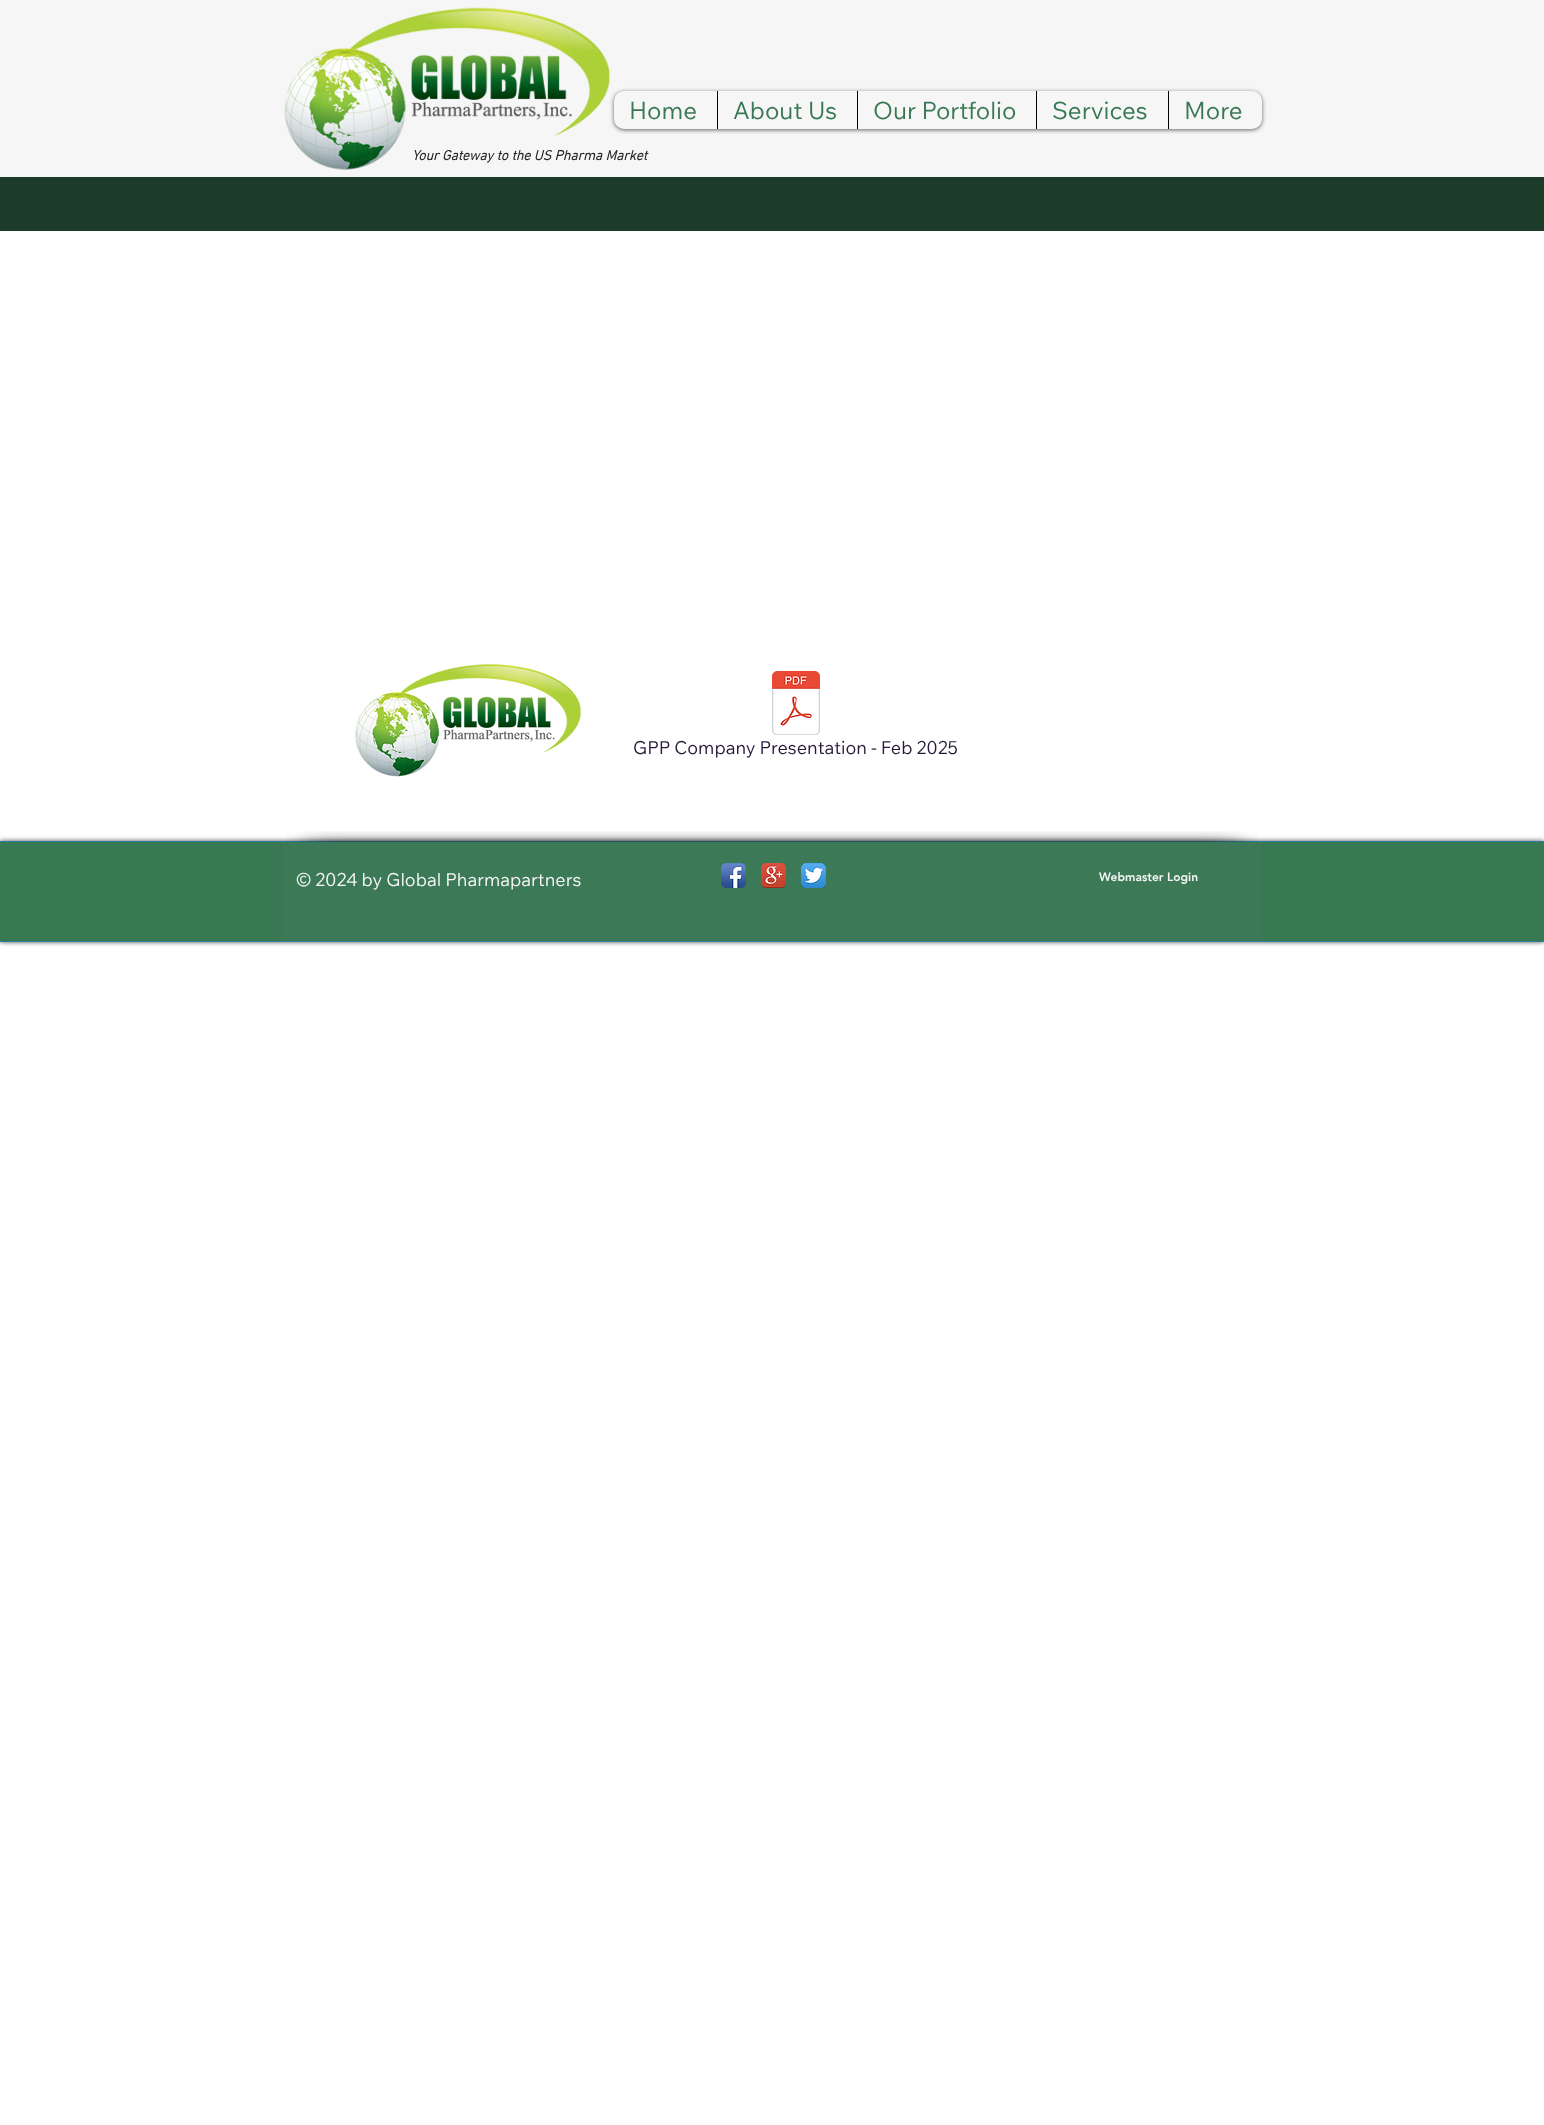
<svg xmlns="http://www.w3.org/2000/svg" width="1544" height="2125">
<style>
.a{font:italic bold 14px 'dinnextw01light';fill:#242323}
.b{font:24px Wix Madefor Text;fill:#387853}
.c{font:18px Wix Madefor Text;fill:#281a39}
.d{font:18px Wix Madefor Text;fill:#f6f6f6}
.e{font:900 12px 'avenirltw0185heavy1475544';fill:#f6f6f6}
</style>
<rect width="100%" height="100%" fill="#fff"/>
<path fill="#f6f6f6" d="M0 0h1544v177H0z"/>
<path fill="#1c3c29" d="M0 177h1544v54H0z"/>
<image href="2.png" x="355" y="664" width="226" height="113"/>
<image href="3.png" x="772" y="671" width="48" height="64"/>
<path fill="#000000b3" filter="blur(2.5px)" d="M0 841h1544v101H0z"/>
<path fill="#387853" d="M0 842h1544v99H0z"/>
<path fill="#2b80a1" d="M0 841h1544v1H0z"/>
<path fill="#2b80a1" d="M0 941h1544v1H0z"/>
<path fill="#3c7956" d="M282 842h980v99H282z"/>
<image href="4.png" x="286" y="831" width="96" height="11"/>
<image href="5.png" x="382" y="831" width="780" height="11"/>
<image href="6.png" x="1162" y="831" width="96" height="11"/>
<image href="7.png" x="721" y="863" width="25" height="25"/>
<image href="8.png" x="761" y="863" width="25" height="25"/>
<image href="9.png" x="801" y="863" width="25" height="25"/>
<text class="a" x="412" y="160">Your Gateway to the US Pharma Market</text>
<image href="1.png" x="284" y="7" width="326" height="163"/>
<rect fill="#00000099" filter="blur(2px)" x="614" y="92" width="648" height="38" rx="10"/>
<rect fill="#f6f6f6" x="614" y="91" width="648" height="38" rx="10"/>
<text class="b" x="1184" y="119">More</text>
<path fill="#000" d="M1168 91h1v38H1168z"/>
<text class="b" x="1052" y="119">Services</text>
<path fill="#000" d="M1036 91h1v38H1036z"/>
<text class="b" x="873" y="119">Our Portfolio</text>
<path fill="#000" d="M857 91h1v38H857z"/>
<text class="b" x="733" y="119">About Us</text>
<path fill="#000" d="M717 91h1v38H717z"/>
<text class="b" x="629" y="119">Home</text>
<text class="c" x="633" y="754">GPP Company Presentation - Feb 2025</text>
<text class="d" x="296" y="886">© 2024 by Global Pharmapartners</text>
<text class="e" x="1099" y="881">Webmaster Login</text>
</svg>
